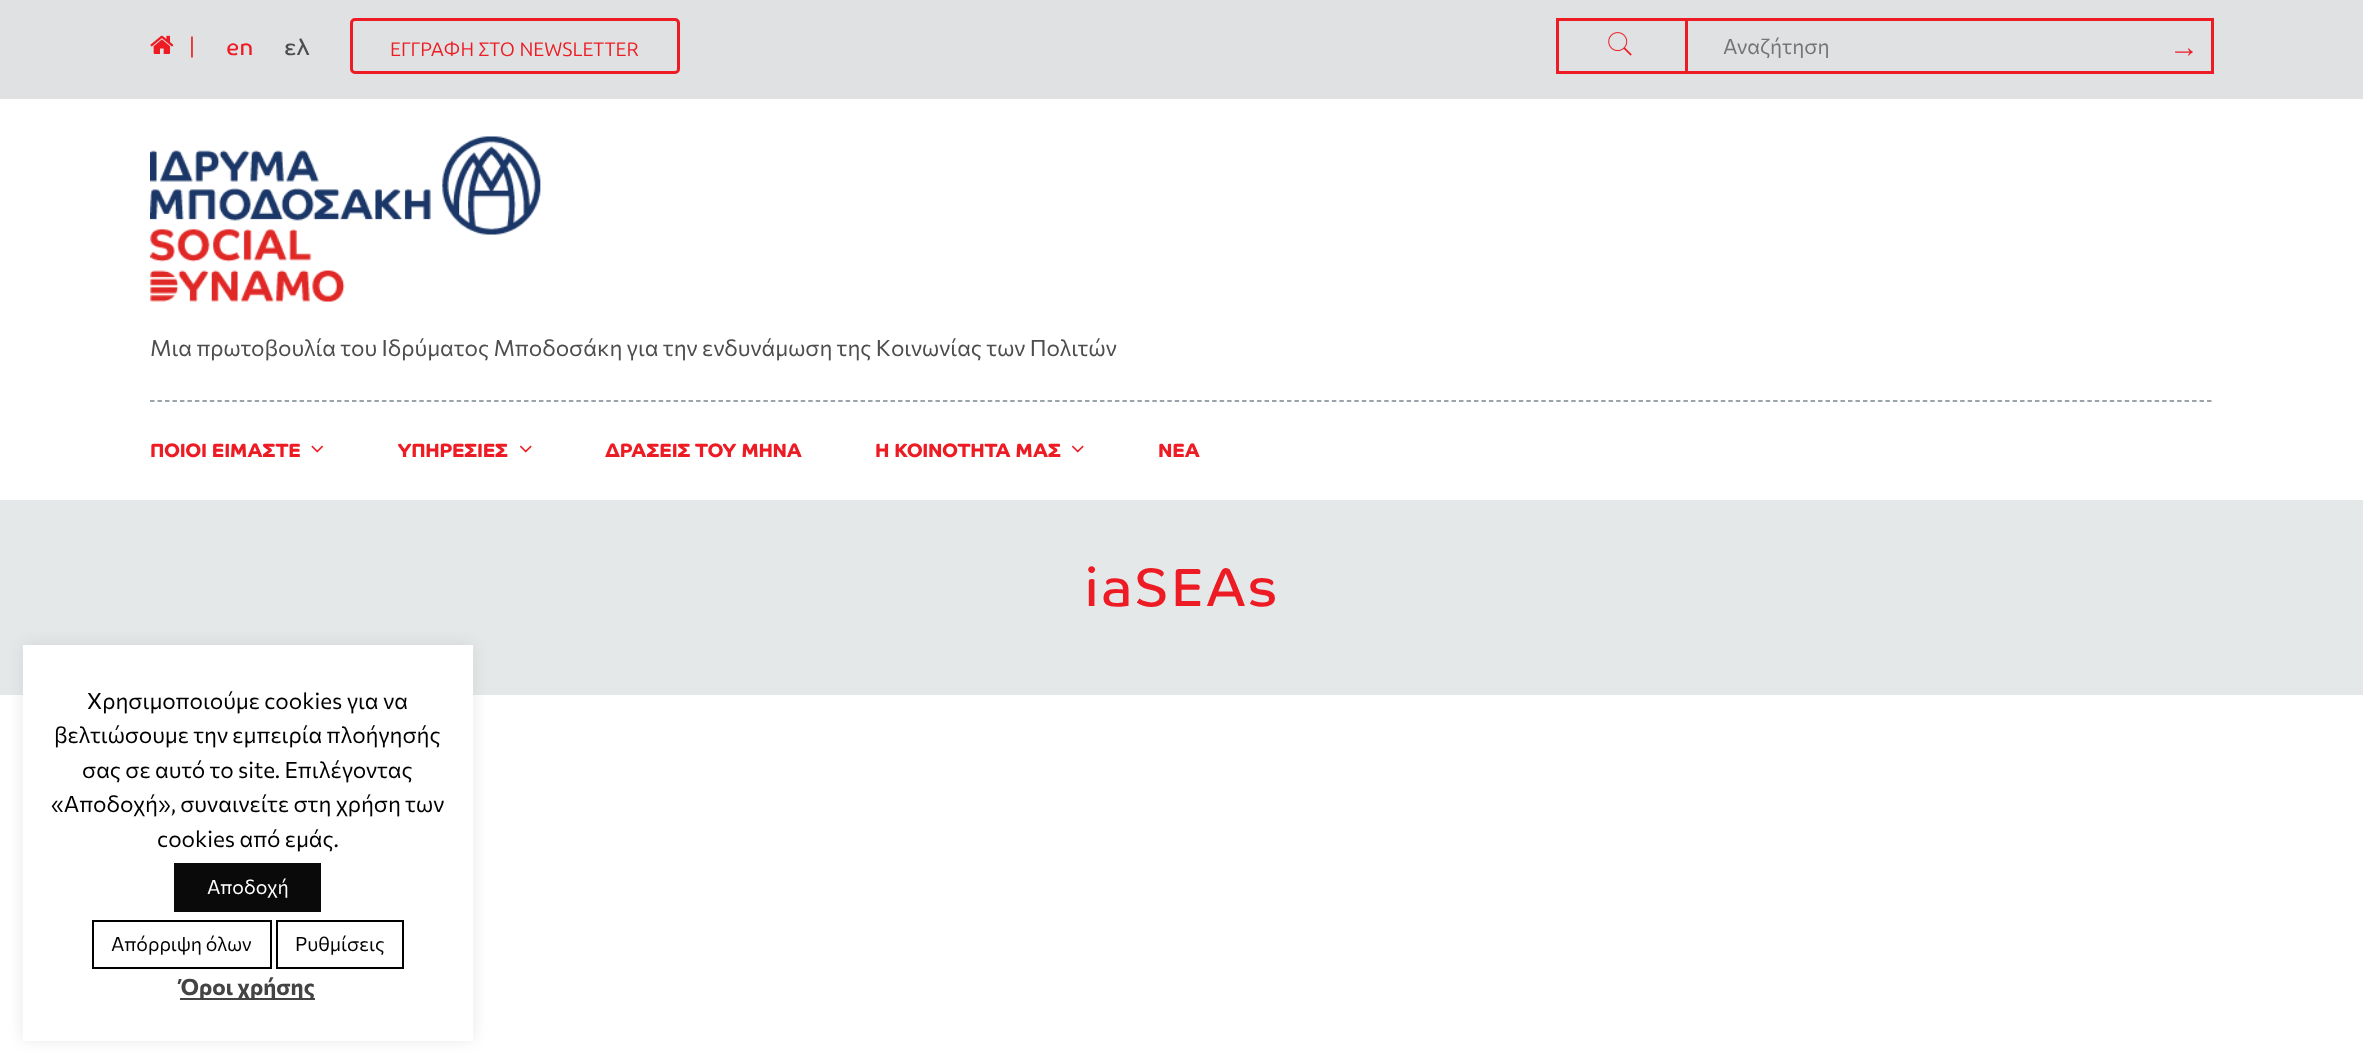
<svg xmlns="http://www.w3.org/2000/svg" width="2363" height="1063">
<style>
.a{font:22.5px Commissioner;fill:#ed1c24}
.b{font:22.5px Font;fill:#ed1c24}
.c{font:22.5px Font;fill:#4d4d4d}
.d{font:19.5px Ubuntu;fill:#ed1c24}
.e{font:21px Commissioner;fill:#757575}
.f{font:30px Liberation Serif;fill:#ed1c24}
.g{font:22.5px Commissioner;fill:#4d4d4d}
.h{font:bold 19.5px Font;fill:#ed1c24}
.i{font:54px Font;letter-spacing:1.5px;fill:#ed1c24}
.j{font:22.5px Commissioner;fill:#000}
.k{font:19.5px Commissioner;fill:#fff}
.l{font:19.5px Commissioner;fill:#000}
.m{font:bold 22.5px Commissioner;fill:#444}
</style>
<rect width="100%" height="100%" fill="#fff"/>
<path fill="#e0e1e2" d="M0 0h2363v99H0z"/>
<image href="1.png" x="150" y="35" width="24" height="19"/>
<rect fill="none" stroke="#ed1c24" stroke-width="3" x="351.5" y="19.5" width="327" height="53" rx="3.5"/>
<path fill="none" stroke="#ed1c24" stroke-width="3" d="M1557.5 19.5h655v53H1557.5z"/>
<path fill="#ed1c24" d="M1685 18h3v53H1685z"/>
<image href="2.png" x="1608" y="32" width="24" height="24"/>
<image href="3.png" x="150" y="136" width="391" height="166"/>
<path fill="none" stroke="#7c878e" stroke-width="1.5" stroke-dasharray="4.5 2.98" d="M150 401h2064"/>
<image href="4.png" x="311" y="445" width="13" height="8"/>
<image href="5.png" x="519" y="445" width="13" height="8"/>
<image href="5.png" x="1071" y="445" width="13" height="8"/>
<path fill="#e5e8e9" d="M0 500h2363v195H0z"/>
<path fill="#acabab4d" filter="blur(7.5px)" d="M23 644h450v396H23z"/>
<path fill="#fff" d="M23 645h450v396H23z"/>
<path fill="#0a0a0a" d="M174 863h147v49H174z"/>
<path fill="none" stroke="#000" stroke-width="2" d="M93 921h178v47H93z"/>
<path fill="none" stroke="#000" stroke-width="2" d="M277 921h126v47H277z"/>
<path fill="#444" d="M180 998h135v2H180z"/>
<text class="a" x="189" y="54">|</text>
<text class="b" x="226" y="55">en</text>
<text class="c" x="284" y="55">ελ</text>
<text class="d" x="390" y="56">ΕΓΓΡΑΦΗ ΣΤΟ NEWSLETTER</text>
<text class="e" x="1723" y="54">Αναζήτηση</text>
<text class="f" x="2169" y="57">→</text>
<text class="g" x="150" y="356">Μια πρωτοβουλία του Ιδρύματος Μποδοσάκη για την ενδυνάμωση της Kοινωνίας των Πολιτών</text>
<text class="h" x="150" y="457">ΠΟΙΟΙ ΕΙΜΑΣΤΕ</text>
<text class="h" x="398" y="457">ΥΠΗΡΕΣΙΕΣ</text>
<text class="h" x="605" y="457">ΔΡΑΣΕΙΣ ΤΟΥ ΜΗΝΑ</text>
<text class="h" x="875" y="457">Η ΚΟΙΝΟΤΗΤΑ ΜΑΣ</text>
<text class="h" x="1158" y="457">ΝΕΑ</text>
<text class="i" x="1084" y="606">iaSEAs</text>
<text class="j" x="87" y="709">Χρησιμοποιούμε cookies για να</text>
<text class="j" x="54" y="743">βελτιώσουμε την εμπειρία πλοήγησής</text>
<text class="j" x="82" y="778">σας σε αυτό το site. Επιλέγοντας</text>
<text class="j" x="51" y="812">«Αποδοχή», συναινείτε στη χρήση των</text>
<text class="j" x="157" y="847">cookies από εμάς.</text>
<text class="k" x="207" y="894">Αποδοχή</text>
<text class="l" x="111" y="951">Απόρριψη όλων</text>
<text class="l" x="295" y="951">Ρυθμίσεις</text>
<text class="m" x="180" y="995">Όροι χρήσης</text>
</svg>
